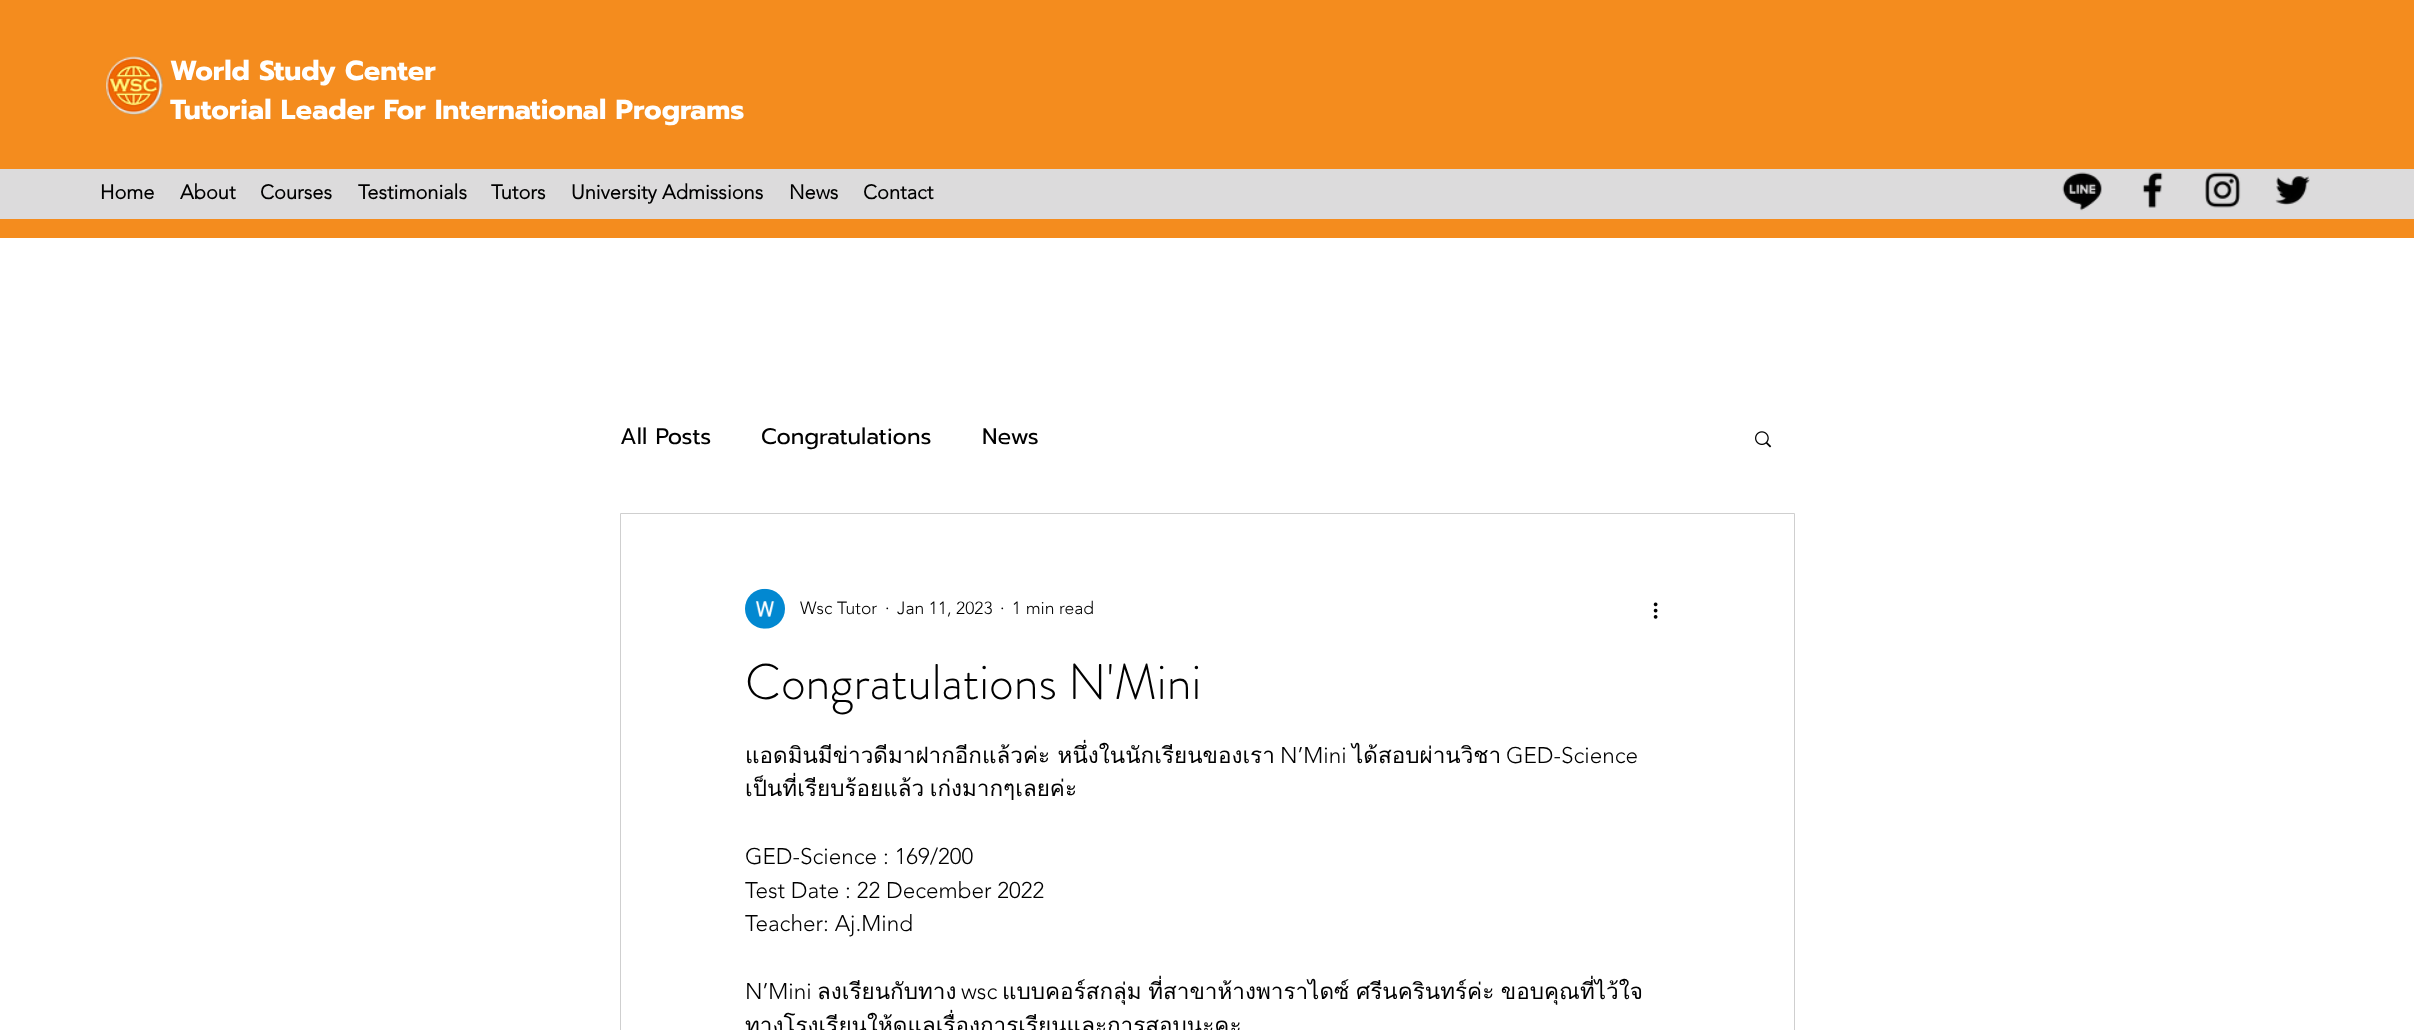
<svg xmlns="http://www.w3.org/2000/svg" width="2414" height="1030">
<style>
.a{font:bold 27.5px Prompt;fill:#fff}
.b{font:bold 20px 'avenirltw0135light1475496';fill:#000}
.c{font:22.5px Prompt;fill:#000}
.d{font:300 17.5px 'avenirltw0135light1475496';fill:#000}
.e{font:300 50px 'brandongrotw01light';fill:#000}
.f{font:22.5px Loma;fill:#000}
.g{font:300 22.5px 'avenirltw0135light1475496';fill:#000}
</style>
<rect width="100%" height="100%" fill="#fff"/>
<path fill="#f48c1e" d="M0 0h2414v238H0z"/>
<image href="1.png" x="105" y="56" width="58" height="60"/>
<path fill="#dcdbdc" d="M0 169h2414v50H0z"/>
<image href="2.png" x="2062" y="172" width="40" height="39"/>
<image href="3.png" x="2142" y="172" width="21" height="36"/>
<image href="4.png" x="2205" y="172" width="36" height="36"/>
<image href="5.png" x="2275" y="176" width="35" height="29"/>
<image href="6.png" x="1755" y="431" width="17" height="17"/>
<path fill="none" stroke="#cfcfcf" d="M620.5 513.5h1174v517H620.5z"/>
<image href="7.png" x="745" y="588" width="40" height="41"/>
<image href="8.png" x="1653" y="602" width="5" height="17"/>
<text class="a" x="170" y="80">World Study Center</text>
<text class="a" x="170" y="119">Tutorial Leader For International Programs</text>
<text class="b" x="100" y="199">Home</text>
<text class="b" x="180" y="199">About</text>
<text class="b" x="260" y="199">Courses</text>
<text class="b" x="358" y="199">Testimonials</text>
<text class="b" x="491" y="199">Tutors</text>
<text class="b" x="571" y="199">University Admissions</text>
<text class="b" x="789" y="199">News</text>
<text class="b" x="863" y="199">Contact</text>
<text class="c" x="620" y="444">All Posts</text>
<text class="c" x="761" y="444">Congratulations</text>
<text class="c" x="982" y="444">News</text>
<text class="d" x="800" y="614">Wsc Tutor</text>
<text class="d" x="885" y="614">·</text>
<text class="d" x="897" y="614">Jan 11, 2023</text>
<text class="d" x="1000" y="614">·</text>
<text class="d" x="1012" y="614">1 min read</text>
<text class="e" x="745" y="699">Congratulations N'Mini</text>
<text class="f" x="745" y="763">แอดมินมีข่าวดีมาฝากอีกแล้วค่ะ หนึ่งในนักเรียนของเรา</text>
<text class="g" x="1280" y="763">N’Mini</text>
<text class="f" x="1352" y="763">ได้สอบผ่านวิชา</text>
<text class="g" x="1506" y="763">GED-Science</text>
<text class="f" x="745" y="796" word-spacing="-2">เป็นที่เรียบร้อยแล้ว เก่งมากๆเลยค่ะ</text>
<text class="g" x="745" y="864">GED-Science : 169/200</text>
<text class="g" x="745" y="898">Test Date : 22 December 2022</text>
<text class="g" x="745" y="931">Teacher: Aj.Mind</text>
<text class="g" x="745" y="999">N’Mini</text>
<text class="f" x="817" y="999">ลงเรียนกับทาง</text>
<text class="g" x="961" y="999">wsc</text>
<text class="f" x="1002" y="999" word-spacing="-1">แบบคอร์สกลุ่ม ที่สาขาห้างพาราไดซ์ ศรีนครินทร์ค่ะ ขอบคุณที่ไว้ใจ</text>
<text class="f" x="745" y="1033">ทางโรงเรียนให้ดูแลเรื่องการเรียนและการสอบนะคะ</text>
</svg>
